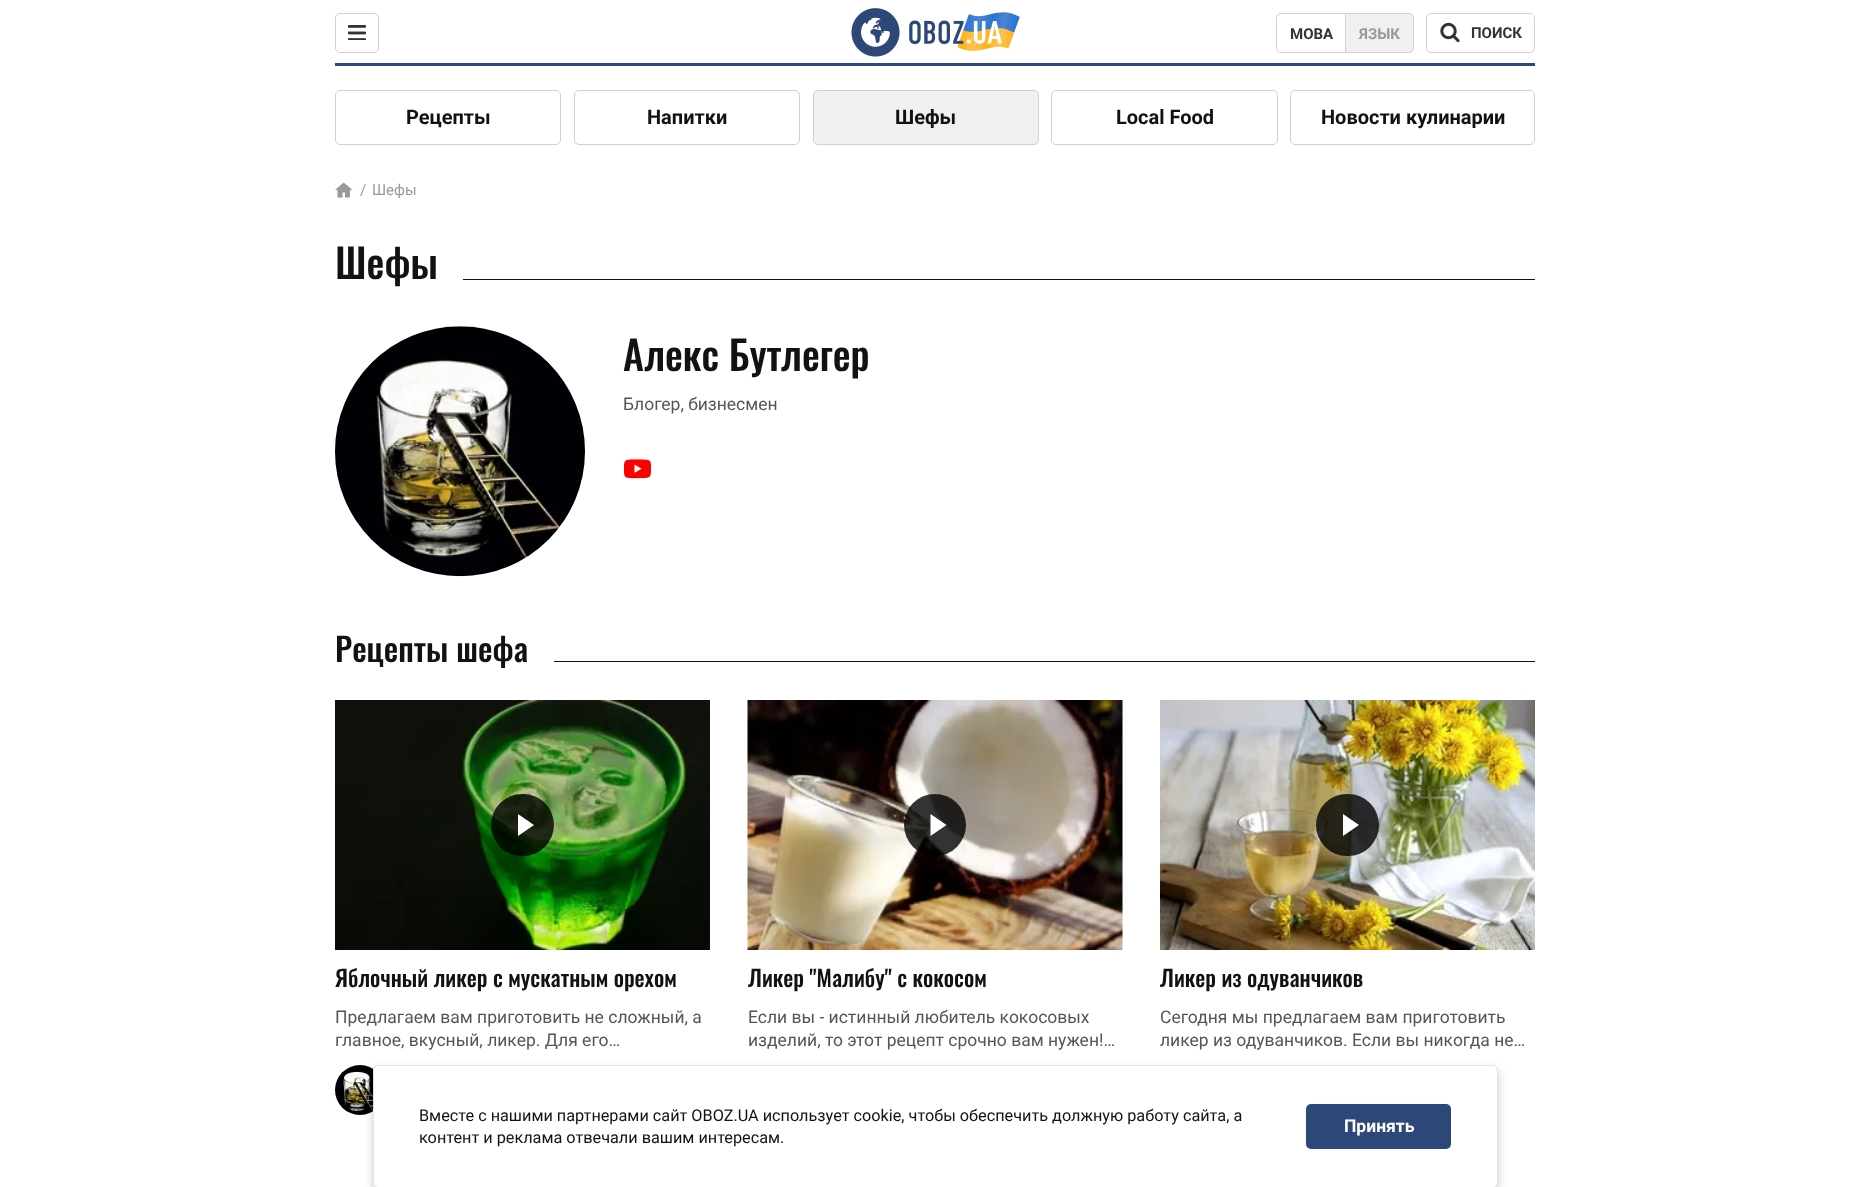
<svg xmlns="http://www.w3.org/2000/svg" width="1870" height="1187">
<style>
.a{font:bold 15px Roboto;fill:#333}
.b{font:bold 15px Roboto;fill:#999}
.c{font:bold 20px Roboto;fill:#121212}
.d{font:15px Roboto;fill:#999}
.e{font:500 40px Oswald;fill:#121212}
.f{font:17.5px Roboto;fill:#555}
.g{font:500 32.5px Oswald;fill:#121212}
.h{font:500 22.5px Oswald;fill:#121212}
.i{font:16.25px Roboto;fill:#121212}
.j{font:bold 17.5px Roboto;fill:#fff}
</style>
<defs>
<clipPath id="clip1"><path d="M748 963h375v30H748z"/></clipPath>
</defs>
<rect width="100%" height="100%" fill="#fff"/>
<path fill="#2d4878" d="M335 63h1200v3H335z"/>
<rect fill="none" stroke="#d0d0d0" x="335.5" y="13.5" width="43" height="39" rx="4.5"/>
<image href="1.png" x="348" y="25" width="18" height="15"/>
<image href="2.png" x="851" y="8" width="169" height="49"/>
<path fill="none" stroke="#d0d0d0" d="M1281 13.5h64.5v39h-64.5c-2.5 0-4.5-2-4.5-4.5v-30c0-2.5 2-4.5 4.5-4.5z"/>
<path fill="#f0f0f0" stroke="#d0d0d0" d="M1345.5 13.5h63.5c2.5 0 4.5 2 4.5 4.5v30c0 2.5-2 4.5-4.5 4.5h-63.5z"/>
<rect fill="none" stroke="#d0d0d0" x="1426.5" y="13.5" width="108" height="39" rx="4.5"/>
<rect fill="#fff" x="1428" y="14" width="106" height="37" rx="4"/>
<image href="3.png" x="1440" y="22" width="20" height="21"/>
<rect fill="none" stroke="#d0d0d0" x="335.5" y="90.5" width="225" height="54" rx="4.5"/>
<rect fill="none" stroke="#d0d0d0" x="574.5" y="90.5" width="225" height="54" rx="4.5"/>
<rect fill="#f0f0f0" stroke="#d0d0d0" x="813.5" y="90.5" width="225" height="54" rx="4.5"/>
<rect fill="none" stroke="#d0d0d0" x="1051.5" y="90.5" width="226" height="54" rx="4.5"/>
<rect fill="none" stroke="#d0d0d0" x="1290.5" y="90.5" width="244" height="54" rx="4.5"/>
<image href="4.png" x="335" y="182" width="18" height="16"/>
<path fill="#121212" d="M463 279h1072v1H463z"/>
<image href="5.png" x="335" y="326" width="250" height="251"/>
<image href="6.png" x="624" y="459" width="27" height="20"/>
<path fill="#121212" d="M554 661h981v1H554z"/>
<image href="7.png" x="335" y="700" width="375" height="250"/>
<rect fill="#000000cc" x="491" y="794" width="63" height="62" rx="31"/>
<path fill="#fff" d="M518 836v-22l16 11z"/>
<image href="8.png" x="335" y="1065" width="39" height="50"/>
<image href="9.png" x="747" y="700" width="376" height="250"/>
<circle fill="#000000cc" cx="935" cy="825" r="31"/>
<path fill="#fff" d="M930.5 836v-22l16 11z"/>
<image href="10.png" x="1160" y="700" width="375" height="250"/>
<rect fill="#000000cc" x="1316" y="794" width="63" height="62" rx="31"/>
<path fill="#fff" d="M1343 836v-22l16 11z"/>
<rect fill="#00000033" filter="blur(5px)" x="373" y="1070" width="1125" height="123" rx="5"/>
<rect fill="#fff" stroke="#e2e2e2" x="373.5" y="1065.5" width="1124" height="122" rx="4.5"/>
<rect fill="#2d4878" x="1306" y="1104" width="145" height="45" rx="5"/>
<text class="a" x="1290" y="39">МОВА</text>
<text class="b" x="1359" y="39">ЯЗЫК</text>
<text class="a" x="1471" y="38">ПОИСК</text>
<text class="c" x="406" y="124">Рецепты</text>
<text class="c" x="647" y="124">Напитки</text>
<text class="c" x="895" y="124">Шефы</text>
<text class="c" x="1116" y="124">Local Food</text>
<text class="c" x="1321" y="124">Новости кулинарии</text>
<text class="d" x="360" y="195">/</text>
<text class="d" x="372" y="195">Шефы</text>
<text class="e" x="335" y="279">Шефы</text>
<text class="e" x="623" y="371">Алекс Бутлегер</text>
<text class="f" x="623" y="410">Блогер, бизнесмен</text>
<text class="g" x="335" y="662">Рецепты шефа</text>
<text class="h" x="335" y="987">Яблочный ликер с мускатным орехом</text>
<text class="f" x="335" y="1023">Предлагаем вам приготовить не сложный, а</text>
<text class="f" x="335" y="1046">главное, вкусный, ликер. Для его…</text>
<g clip-path="url(#clip1)">
<text class="h" x="748" y="987">Ликер "Малибу" с кокосом</text>
</g>
<text class="f" x="748" y="1023">Если вы - истинный любитель кокосовых</text>
<text class="f" x="748" y="1046">изделий, то этот рецепт срочно вам нужен!…</text>
<text class="h" x="1160" y="987">Ликер из одуванчиков</text>
<text class="f" x="1160" y="1023">Сегодня мы предлагаем вам приготовить</text>
<text class="f" x="1160" y="1046">ликер из одуванчиков. Если вы никогда не…</text>
<text class="i" x="419" y="1121">Вместе с нашими партнерами сайт OBOZ.UA использует cookie, чтобы обеспечить должную работу сайта, а</text>
<text class="i" x="419" y="1143">контент и реклама отвечали вашим интересам.</text>
<text class="j" x="1344" y="1132">Принять</text>
</svg>
